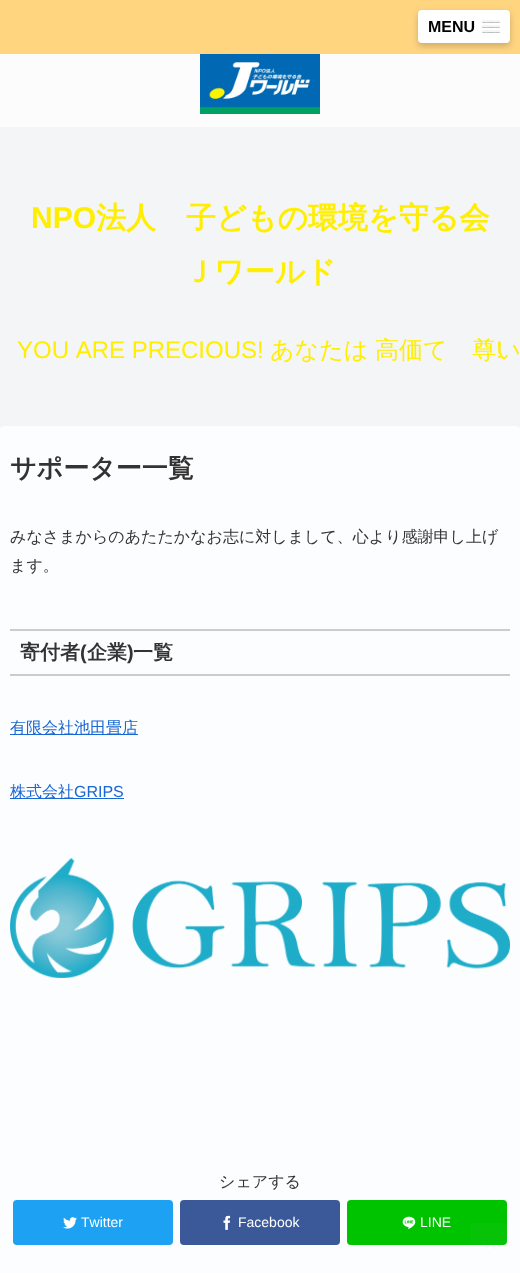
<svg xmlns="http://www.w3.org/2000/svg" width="520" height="1273">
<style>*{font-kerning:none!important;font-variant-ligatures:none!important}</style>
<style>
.a{font:bold 16px Liberation Sans;fill:#000}
.b{font:bold 30px Liberation Sans;fill:#fe0}
.c{font:bold 30px WenQuanYi Zen Hei;fill:#fe0}
.d{font:24px Liberation Sans;fill:#fe0}
.e{font:500 24px WenQuanYi Zen Hei;fill:#fe0}
.f{font:bold 26px WenQuanYi Zen Hei;fill:#333}
.g{font:500 16px WenQuanYi Zen Hei;fill:#333}
.h{font:bold 20px WenQuanYi Zen Hei;fill:#333}
.i{font:bold 20px Liberation Sans;fill:#333}
.j{font:500 16px WenQuanYi Zen Hei;fill:#1967d2}
.k{font:16px Liberation Sans;fill:#1967d2}
.l{font:14px Liberation Sans;fill:#fff}
</style>
<rect width="100%" height="100%" fill="#f4f5f7"/>
<path fill="#ffd580" d="M0 0h520v54H0z"/>
<path fill="#fcfcfd" d="M0 54h520v73H0z"/>
<rect fill="#00000033" filter="blur(3px)" x="418" y="13" width="92" height="33" rx="4"/>
<rect fill="#fff" x="418" y="10" width="92" height="33" rx="4"/>
<path fill="#bfbfbf" d="M482 21.5c-1 2 3.5 1.5 3.5 1.5h11c0 0 4.5 .5 3.5-1.5c-1 1-7.5 .5-9 .5c-1.5 0-8 .5-9-.5z"/>
<rect fill="#f5f5f5" x="482" y="20" width="18" height="2" rx="1"/>
<path fill="#bfbfbf" d="M482 26.5c-1 2 3.5 1.5 3.5 1.5h11c0 0 4.5 .5 3.5-1.5c-1 1-7.5 .5-9 .5c-1.5 0-8 .5-9-.5z"/>
<rect fill="#f5f5f5" x="482" y="25" width="18" height="2" rx="1"/>
<path fill="#bfbfbf" d="M482 31.5c-1 2 3.5 1.5 3.5 1.5h11c0 0 4.5 .5 3.5-1.5c-1 1-7.5 .5-9 .5c-1.5 0-8 .5-9-.5z"/>
<rect fill="#f5f5f5" x="482" y="30" width="18" height="2" rx="1"/>
<image href="1.png" x="200" y="54" width="120" height="60"/>
<rect fill="#fcfdfe" y="426" width="520" height="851" rx="4"/>
<path fill="#ccc" d="M10 629h500v2H10z"/>
<path fill="#ccc" d="M10 674h500v2H10z"/>
<path fill="#1967d2" d="M10 734h128v1H10z"/>
<path fill="#1967d2" d="M10 798h114v1H10z"/>
<image href="2.png" x="10" y="858" width="500" height="120"/>
<rect fill="#1da1f2" x="13" y="1200" width="160" height="45" rx="4"/>
<image href="3.png" x="63" y="1217" width="14" height="12"/>
<rect fill="#3b5998" x="180" y="1200" width="160" height="45" rx="4"/>
<image href="4.png" x="223" y="1215" width="8" height="15"/>
<rect fill="#00c300" x="347" y="1200" width="160" height="45" rx="4"/>
<image href="5.png" x="402" y="1216" width="14" height="13"/>
<path fill="#eeeeee08" d="M470 1223h37v22H470z"/>
<image href="6.png" x="484" y="1245" width="12" height="4"/>
<text class="a" x="428" y="32">MENU</text>
<text class="b" x="31" y="228">NPO</text>
<text class="c" x="96" y="228">法人　子どもの環境を守る会</text>
<text class="c" x="184" y="282">Ｊワールド</text>
<text class="d" x="17" y="358">YOU ARE PRECIOUS!</text>
<text class="e" x="270" y="358">あなたは</text>
<text class="e" x="375" y="358">高価で尊い</text>
<text class="d" x="496" y="358">!</text>
<text class="f" x="10" y="477">サポーター一覧</text>
<text class="g" x="10" y="542">みなさまからのあたたかなお志に対しまして、心より感謝申し上げ</text>
<text class="g" x="10" y="571">ます。</text>
<text class="h" x="20" y="659">寄付者</text>
<text class="i" x="80" y="659">(</text>
<text class="h" x="87" y="659">企業</text>
<text class="i" x="127" y="659">)</text>
<text class="h" x="133" y="659">一覧</text>
<text class="j" x="10" y="733">有限会社池田畳店</text>
<text class="j" x="10" y="797">株式会社</text>
<text class="k" x="74" y="797">GRIPS</text>
<text class="g" x="219" y="1187">シェアする</text>
<text class="l" x="81" y="1227">Twitter</text>
<text class="l" x="238" y="1227">Facebook</text>
<text class="l" x="420" y="1227">LINE</text>
</svg>
